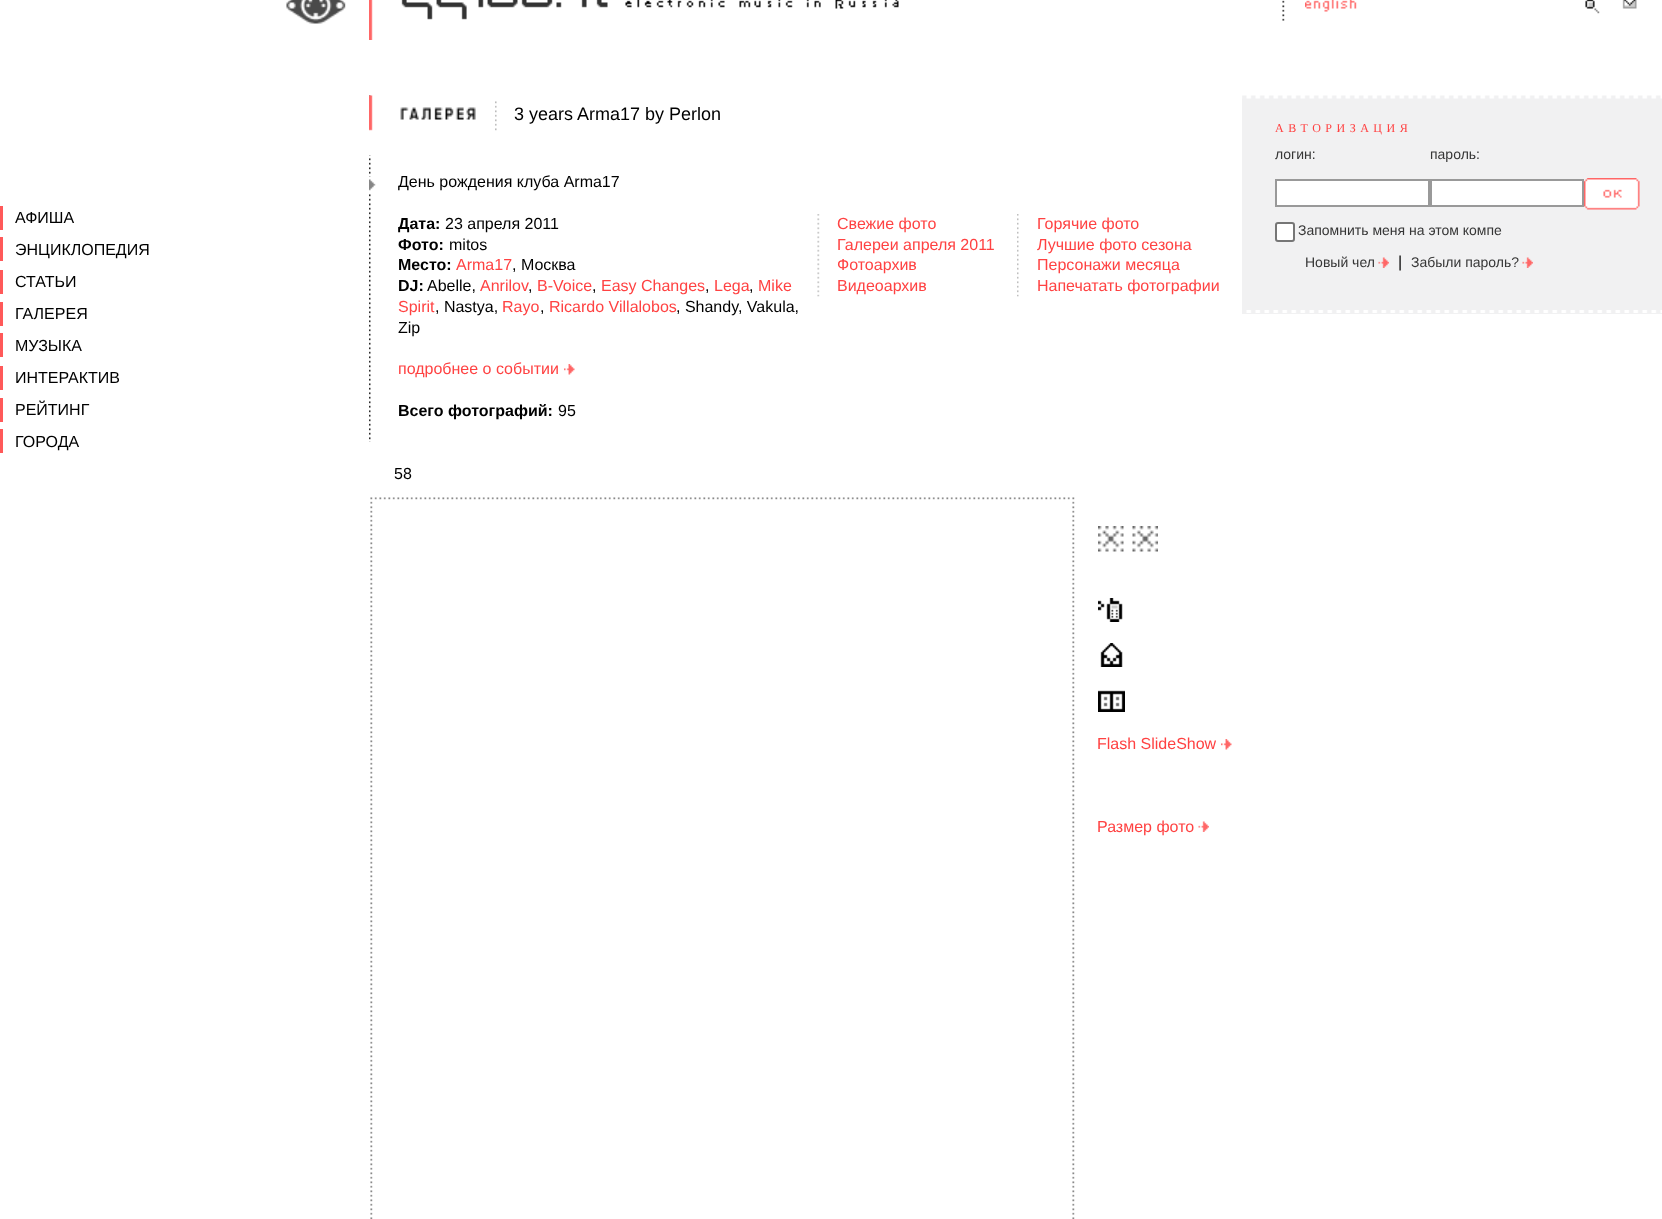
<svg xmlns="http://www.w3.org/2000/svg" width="1662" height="1219">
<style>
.a{font:16px Liberation Sans;fill:#000}
.b{font:18px Liberation Sans;fill:#000}
.c{font:bold 16px Liberation Sans;fill:#000}
.d{font:16px Liberation Sans;fill:#ff4242}
.e{font:12px Liberation Serif;letter-spacing:4.5px;fill:#ff4242}
.f{font:14px Liberation Sans;fill:#363636}
</style>
<rect width="100%" height="100%" fill="#fff"/>
<image href="1.png" x="286" y="0" width="60" height="24"/>
<image href="2.png" x="369" y="0" width="4" height="40"/>
<image href="3.png" x="401" y="0" width="498" height="20"/>
<image href="4.png" x="1282" y="0" width="3" height="21"/>
<image href="5.png" x="1305" y="0" width="52" height="12"/>
<image href="6.png" x="1585" y="0" width="15" height="14"/>
<image href="7.png" x="1622" y="0" width="15" height="9"/>
<path fill="#ff5959" d="M0 206h3v24H0z"/>
<path fill="#ff5959" d="M0 237h3v24H0z"/>
<path fill="#ff5959" d="M0 270h3v24H0z"/>
<path fill="#ff5959" d="M0 302h3v24H0z"/>
<path fill="#ff5959" d="M0 333h3v24H0z"/>
<path fill="#ff5959" d="M0 366h3v24H0z"/>
<path fill="#ff5959" d="M0 398h3v24H0z"/>
<path fill="#ff5959" d="M0 429h3v24H0z"/>
<image href="8.png" x="369" y="95" width="2" height="1"/>
<image href="9.png" x="369" y="95" width="2" height="347"/>
<image href="10.png" x="369" y="95" width="4" height="61"/>
<image href="11.png" x="369" y="176" width="7" height="16"/>
<image href="12.png" x="400" y="107" width="76" height="13"/>
<image href="13.png" x="495" y="101" width="2" height="30"/>
<image href="14.png" x="564" y="364" width="11" height="11"/>
<image href="15.png" x="817" y="214" width="3" height="83"/>
<image href="16.png" x="1017" y="214" width="2" height="83"/>
<path fill="#f1f1f2" d="M1242 98h420v216H1242z"/>
<image href="17.png" x="1242" y="95" width="420" height="4"/>
<path fill="#fff" stroke="#999" stroke-width="2" d="M1276 180h153v26H1276z"/>
<path fill="#fff" stroke="#999" stroke-width="2" d="M1431 180h152v26H1431z"/>
<image href="18.png" x="1584" y="178" width="56" height="32"/>
<rect fill="#fff" stroke="#767676" stroke-width="2" x="1276" y="223" width="18" height="18" rx="2"/>
<image href="19.png" x="1378" y="257" width="11" height="11"/>
<image href="20.png" x="1522" y="257" width="11" height="11"/>
<image href="21.png" x="1246" y="310" width="416" height="3"/>
<image href="22.png" x="370" y="497" width="705" height="722"/>
<path fill="#fff" d="M374 501h696v718H374z"/>
<image href="23.png" x="1098" y="526" width="26" height="26"/>
<image href="24.png" x="1132" y="526" width="26" height="26"/>
<image href="25.png" x="1098" y="598" width="25" height="24"/>
<image href="26.png" x="1100" y="643" width="23" height="24"/>
<image href="27.png" x="1098" y="690" width="27" height="22"/>
<image href="14.png" x="1221" y="739" width="11" height="11"/>
<image href="28.png" x="1198" y="821" width="11" height="11"/>
<text class="a" x="15" y="223">АФИША</text>
<text class="a" x="15" y="255">ЭНЦИКЛОПЕДИЯ</text>
<text class="a" x="15" y="287">СТАТЬИ</text>
<text class="a" x="15" y="319">ГАЛЕРЕЯ</text>
<text class="a" x="15" y="351">МУЗЫКА</text>
<text class="a" x="15" y="383">ИНТЕРАКТИВ</text>
<text class="a" x="15" y="415">РЕЙТИНГ</text>
<text class="a" x="15" y="447">ГОРОДА</text>
<text class="b" x="514" y="120">3 years Arma17 by Perlon</text>
<text class="a" x="398" y="187">День рождения клуба Arma17</text>
<text class="c" x="398" y="229">Дата:</text>
<text class="a" x="445" y="229">23 апреля 2011</text>
<text class="c" x="398" y="250">Фото:</text>
<text class="a" x="449" y="250">mitos</text>
<text class="c" x="398" y="270">Место:</text>
<text class="d" x="456" y="270">Arma17</text>
<text class="a" x="512" y="270">, Москва</text>
<text class="c" x="398" y="291">DJ:</text>
<text class="a" x="427" y="291">Abelle,</text>
<text class="d" x="480" y="291">Anrilov</text>
<text class="d" x="537" y="291">B-Voice</text>
<text class="d" x="601" y="291">Easy Changes</text>
<text class="d" x="714" y="291">Lega</text>
<text class="d" x="758" y="291">Mike</text>
<text class="a" x="528" y="291">,</text>
<text class="a" x="592" y="291">,</text>
<text class="a" x="705" y="291">,</text>
<text class="a" x="749" y="291">,</text>
<text class="d" x="398" y="312">Spirit</text>
<text class="a" x="435" y="312">, Nastya,</text>
<text class="d" x="502" y="312">Rayo</text>
<text class="a" x="540" y="312">,</text>
<text class="d" x="549" y="312">Ricardo Villalobos</text>
<text class="a" x="676" y="312">, Shandy, Vakula,</text>
<text class="a" x="398" y="333">Zip</text>
<text class="d" x="398" y="374">подробнее о событии</text>
<text class="c" x="398" y="416">Всего фотографий:</text>
<text class="a" x="558" y="416">95</text>
<text class="d" x="837" y="229">Свежие фото</text>
<text class="d" x="837" y="250">Галереи апреля 2011</text>
<text class="d" x="837" y="270">Фотоархив</text>
<text class="d" x="837" y="291">Видеоархив</text>
<text class="d" x="1037" y="229">Горячие фото</text>
<text class="d" x="1037" y="250">Лучшие фото сезона</text>
<text class="d" x="1037" y="270">Персонажи месяца</text>
<text class="d" x="1037" y="291">Напечатать фотографии</text>
<text class="e" x="1275" y="132">АВТОРИЗАЦИЯ</text>
<text class="f" x="1275" y="159">логин:</text>
<text class="f" x="1430" y="159">пароль:</text>
<text class="f" x="1298" y="235">Запомнить меня на этом компе</text>
<text class="f" x="1305" y="267">Новый чел</text>
<text class="a" x="1398" y="267">|</text>
<text class="f" x="1411" y="267">Забыли пароль?</text>
<text class="a" x="394" y="479">58</text>
<text class="d" x="1097" y="749">Flash SlideShow</text>
<text class="d" x="1097" y="832">Размер фото</text>
</svg>
